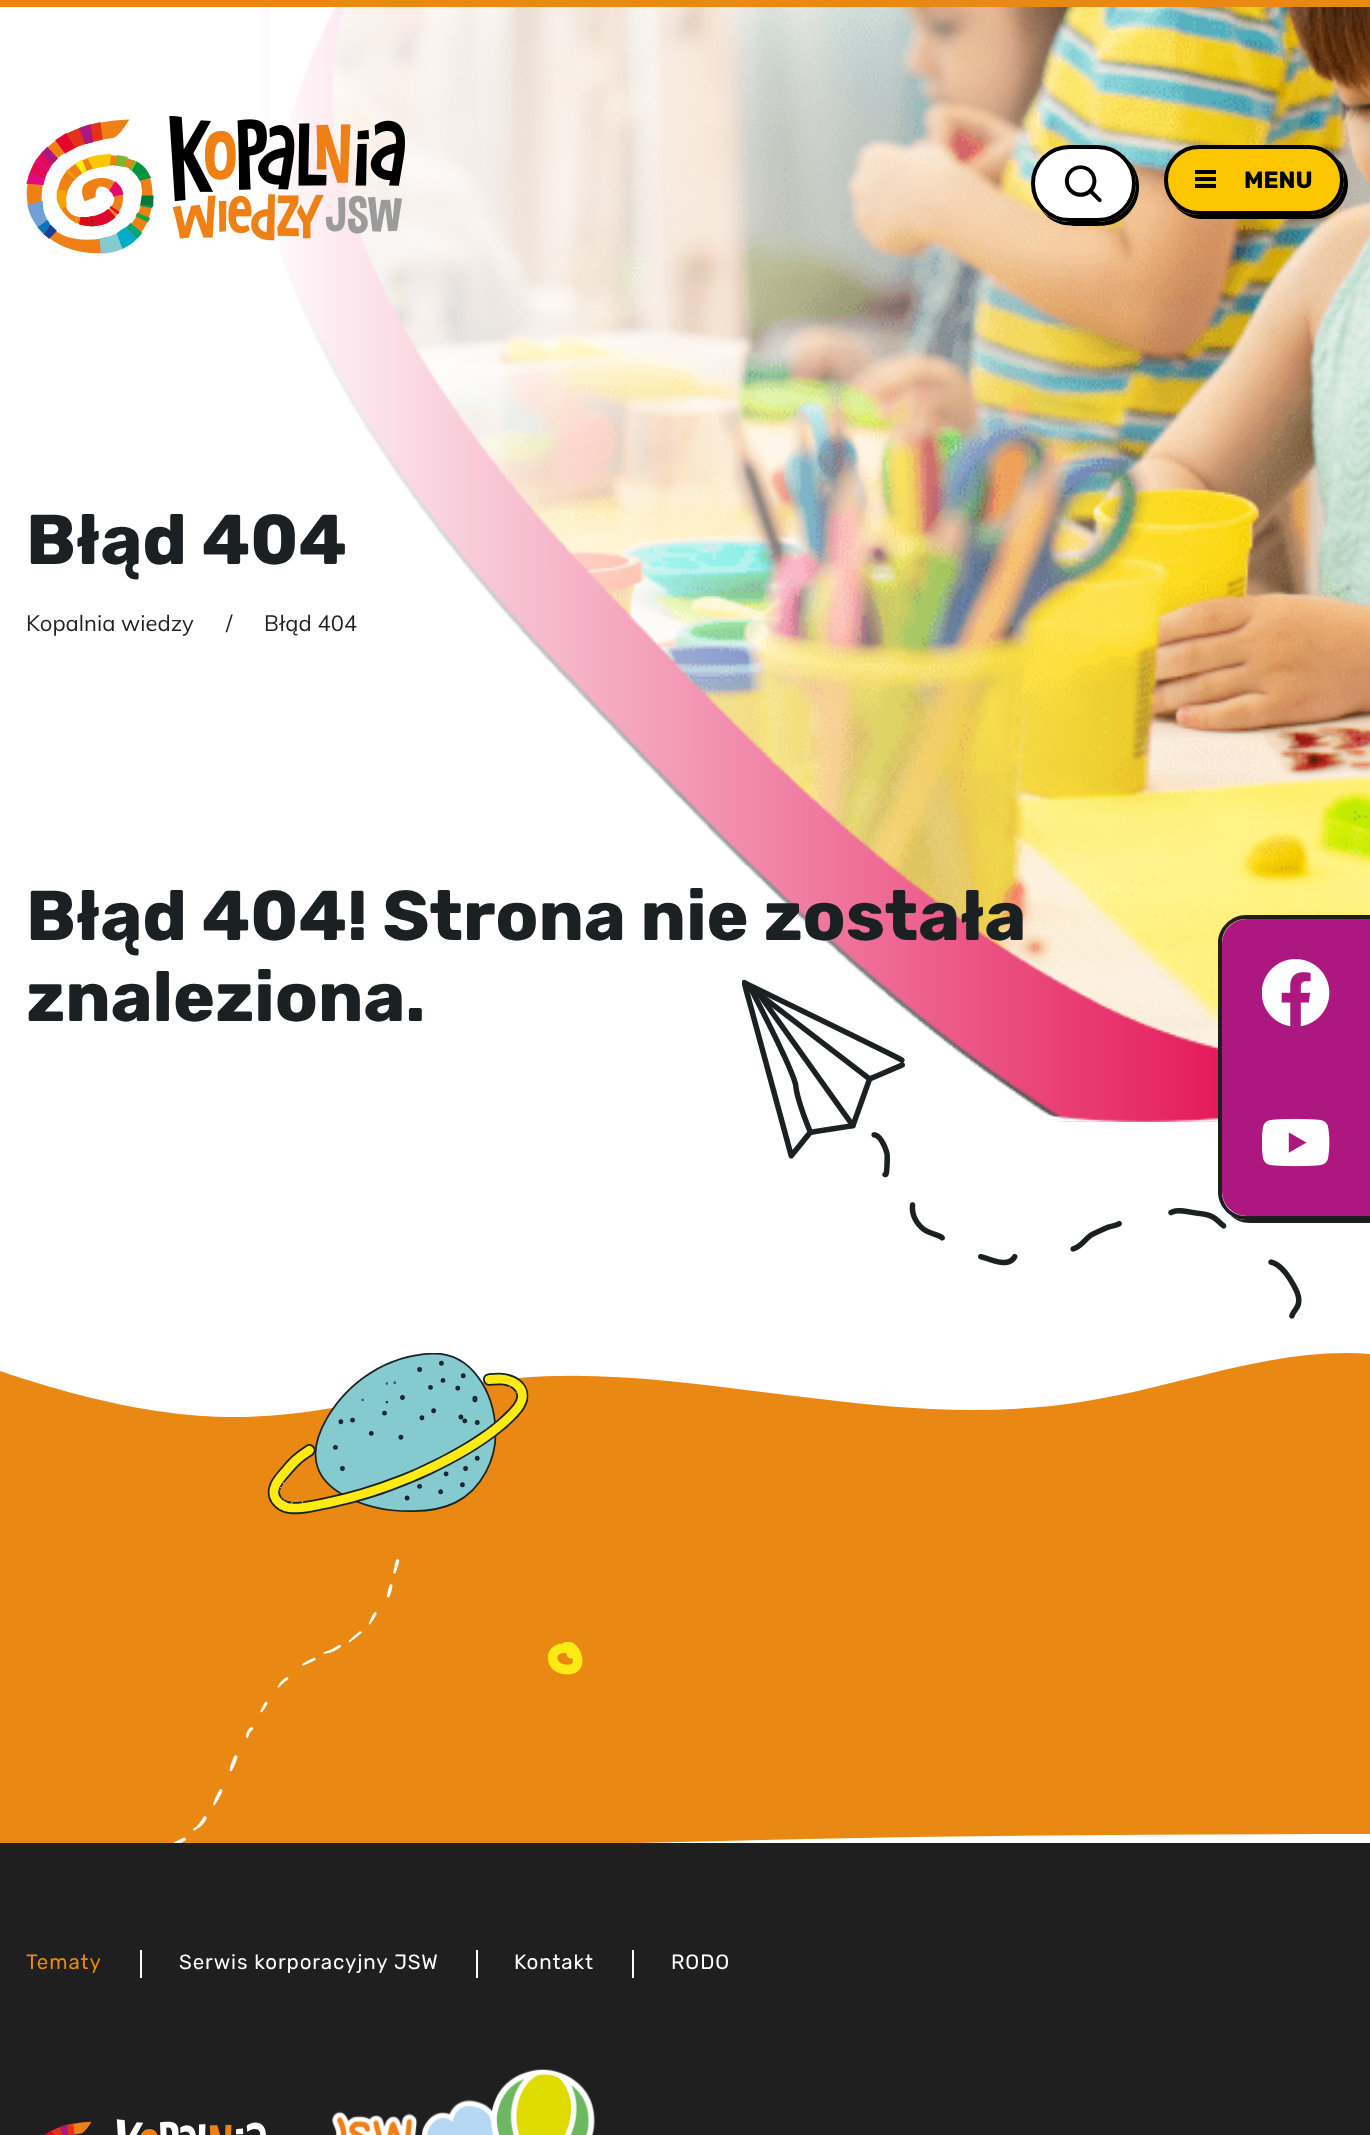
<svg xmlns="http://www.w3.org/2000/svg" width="1370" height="2135">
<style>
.a{font:bold 23.5px Rubik;fill:#000}
.b{font:bold 70.5px Rubik;fill:#1b2023}
.c{font:22px Muli;fill:#1b2023}
.d{font:20.6px Rubik;letter-spacing:0.9px;fill:#ea8814}
.e{font:20.6px Rubik;letter-spacing:0.9px;fill:#fff}
</style>
<defs>
<linearGradient id="g1" gradientUnits="userSpaceOnUse" x1="252" y1="368" x2="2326" y2="367"><stop offset="0" stop-color="#fff"/><stop offset="0.5" stop-color="#fff" stop-opacity="0"/></linearGradient>
</defs>
<rect width="100%" height="100%" fill="#fff"/>
<image href="3.png" x="258" y="7" width="1112" height="1115"/>
<path fill="url(#g1)" d="M258 7h1009v1115H258z"/>
<image href="4.png" x="270" y="7" width="948" height="1115"/>
<image href="1.png" x="26" y="116" width="380" height="138"/>
<path fill="#000" d="M1042 211c13 17 30 15 49 15c8 0 17 0 24-3c26-11 32-44 13-63c5 7 8 15 8 24c0 21-17 38-39 38h-28c-10 0-20-4-27-11z"/>
<rect fill="#fff" stroke="#000" stroke-width="4" x="1033" y="147" width="101" height="73" rx="36.5"/>
<image href="2.png" x="1064" y="165" width="38" height="38"/>
<path fill="#000" d="M1174 205c6 8 17 14 28 14h111c19 0 35-16 35-35c0-11-5-21-13-27c6 6 9 14 9 23c0 20-16 35-35 35h-110c-10 0-19-4-25-10z"/>
<rect fill="#fcc701" stroke="#000" stroke-width="4" x="1166" y="147" width="176" height="66" rx="33"/>
<path fill="#000" d="M1195 170h21v4H1195z"/>
<path fill="#000" d="M1195 177h21v4H1195z"/>
<path fill="#000" d="M1195 184h21v4H1195z"/>
<path fill="#ea8814" d="M0 0h1370v7H0z"/>
<image href="5.png" x="742" y="980" width="560" height="339"/>
<path fill="#1e1e1e" d="M1230 1215c5 5 12 8 20 8h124v-304h-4v301h-124c-6 0-11-2-16-5z"/>
<path fill="#1e1e1e" fill-rule="evenodd" d="M1246 915h124v305h-124c-15 0-28-13-28-28v-249c0-15 13-28 28-28zm0 4h124v297h-124c-14 0-24-11-24-24v-249c0-13 10-24 24-24z"/>
<path fill="#ad1880" d="M1247 919h123v149h-148v-124c0-14 11-25 25-25z"/>
<image href="6.png" x="1262" y="959" width="68" height="68"/>
<path fill="#ad1880" d="M1222 1068h148v148h-123c-14 0-25-11-25-25z"/>
<image href="7.png" x="1262" y="1118" width="68" height="49"/>
<path fill="#ea8814" fill-rule="evenodd" d="M-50 1866c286-11 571-21 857-27c286-6 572-5 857-5v-32h-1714zm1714-440l-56-29c-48-27-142-35-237-43c-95-8-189 32-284 47c-95 16-189 8-284-4c-96-11-189-27-285-19c-95 8-189 39-284 39c-95 0-189-31-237-47l-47-16v166h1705z"/>
<path fill="#ea8814" d="M0 1520h1370v282H0z"/>
<image href="8.png" x="173" y="1353" width="356" height="490"/>
<image href="9.png" x="548" y="1642" width="35" height="33"/>
<path fill="#1f1f1f" d="M0 1843h1370v292H0z"/>
<path fill="#fff" d="M140 1950h2v28H140z"/>
<path fill="#fff" d="M476 1950h2v28H476z"/>
<path fill="#fff" d="M632 1950h2v28H632z"/>
<image href="10.png" x="44" y="2119" width="222" height="16"/>
<image href="11.png" x="332" y="2069" width="263" height="66"/>
<text class="a" x="1244" y="188">MENU</text>
<text class="b" x="26" y="564">Błąd 404</text>
<text class="c" x="26" y="631">Kopalnia wiedzy</text>
<text class="c" x="226" y="631">/</text>
<text class="c" x="264" y="631">Błąd 404</text>
<text class="b" x="26" y="940">Błąd 404! Strona nie została</text>
<text class="b" x="26" y="1021">znaleziona.</text>
<text class="d" x="26" y="1969">Tematy</text>
<text class="e" x="179" y="1969">Serwis korporacyjny JSW</text>
<text class="e" x="514" y="1969">Kontakt</text>
<text class="e" x="671" y="1969">RODO</text>
</svg>
